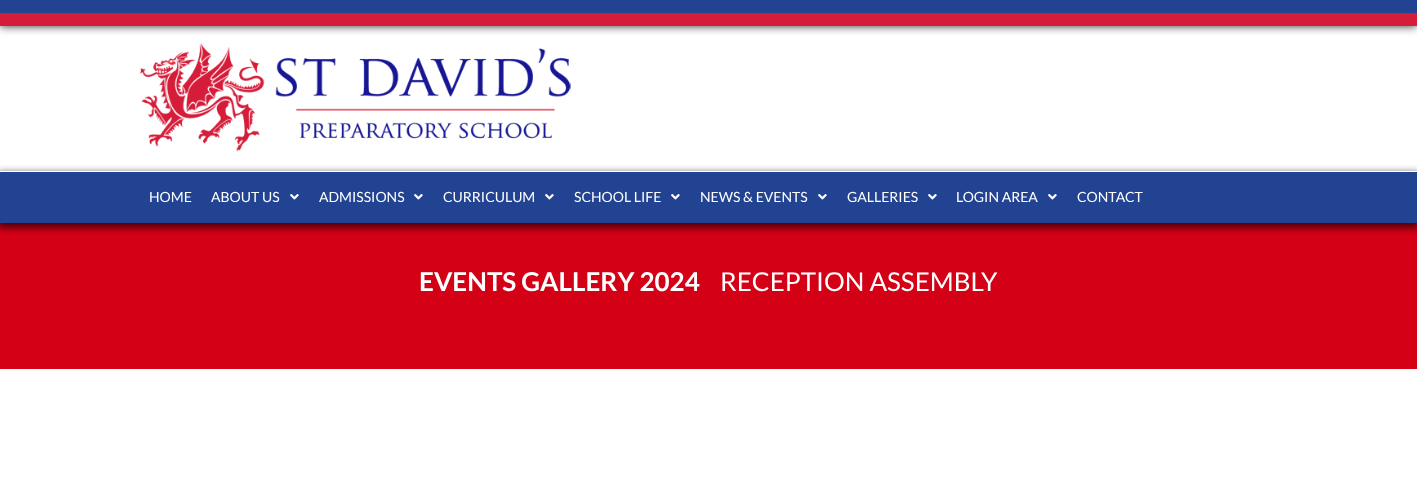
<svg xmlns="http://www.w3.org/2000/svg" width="1417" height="490">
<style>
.a{font:14px Lato;fill:#fff}
.b{font:bold 26px Lato;fill:#fff}
.c{font:26px Lato;fill:#fff}
</style>
<rect width="100%" height="100%" fill="#fff"/>
<path fill="#000000d4" filter="blur(5px)" d="M0 0h1417v26H0z"/>
<path fill="#d51c38" d="M0 13h1417v13H0z"/>
<path fill="#224392" d="M0 0h1417v13H0z"/>
<image href="1.png" x="139" y="43" width="432" height="109"/>
<path fill="#d40016" d="M0 223h1417v146H0z"/>
<path fill="#0000009e" filter="blur(3.5px)" d="M-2 172h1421v56H-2z"/>
<path fill="#224392" d="M0 172h1417v51H0z"/>
<path fill="#fff" d="M0 171h1417v1H0z"/>
<image href="2.png" x="290" y="194" width="9" height="6"/>
<image href="2.png" x="414" y="194" width="9" height="6"/>
<image href="2.png" x="545" y="194" width="9" height="6"/>
<image href="2.png" x="671" y="194" width="9" height="6"/>
<image href="2.png" x="818" y="194" width="9" height="6"/>
<image href="2.png" x="928" y="194" width="9" height="6"/>
<image href="2.png" x="1048" y="194" width="9" height="6"/>
<text class="a" x="149" y="202">HOME</text>
<text class="a" x="211" y="202">ABOUT US</text>
<text class="a" x="319" y="202">ADMISSIONS</text>
<text class="a" x="443" y="202">CURRICULUM</text>
<text class="a" x="574" y="202">SCHOOL LIFE</text>
<text class="a" x="700" y="202">NEWS &amp; EVENTS</text>
<text class="a" x="847" y="202">GALLERIES</text>
<text class="a" x="956" y="202">LOGIN AREA</text>
<text class="a" x="1077" y="202">CONTACT</text>
<text class="b" x="419" y="291">EVENTS GALLERY 2024</text>
<text class="c" x="720" y="291">RECEPTION ASSEMBLY</text>
</svg>
